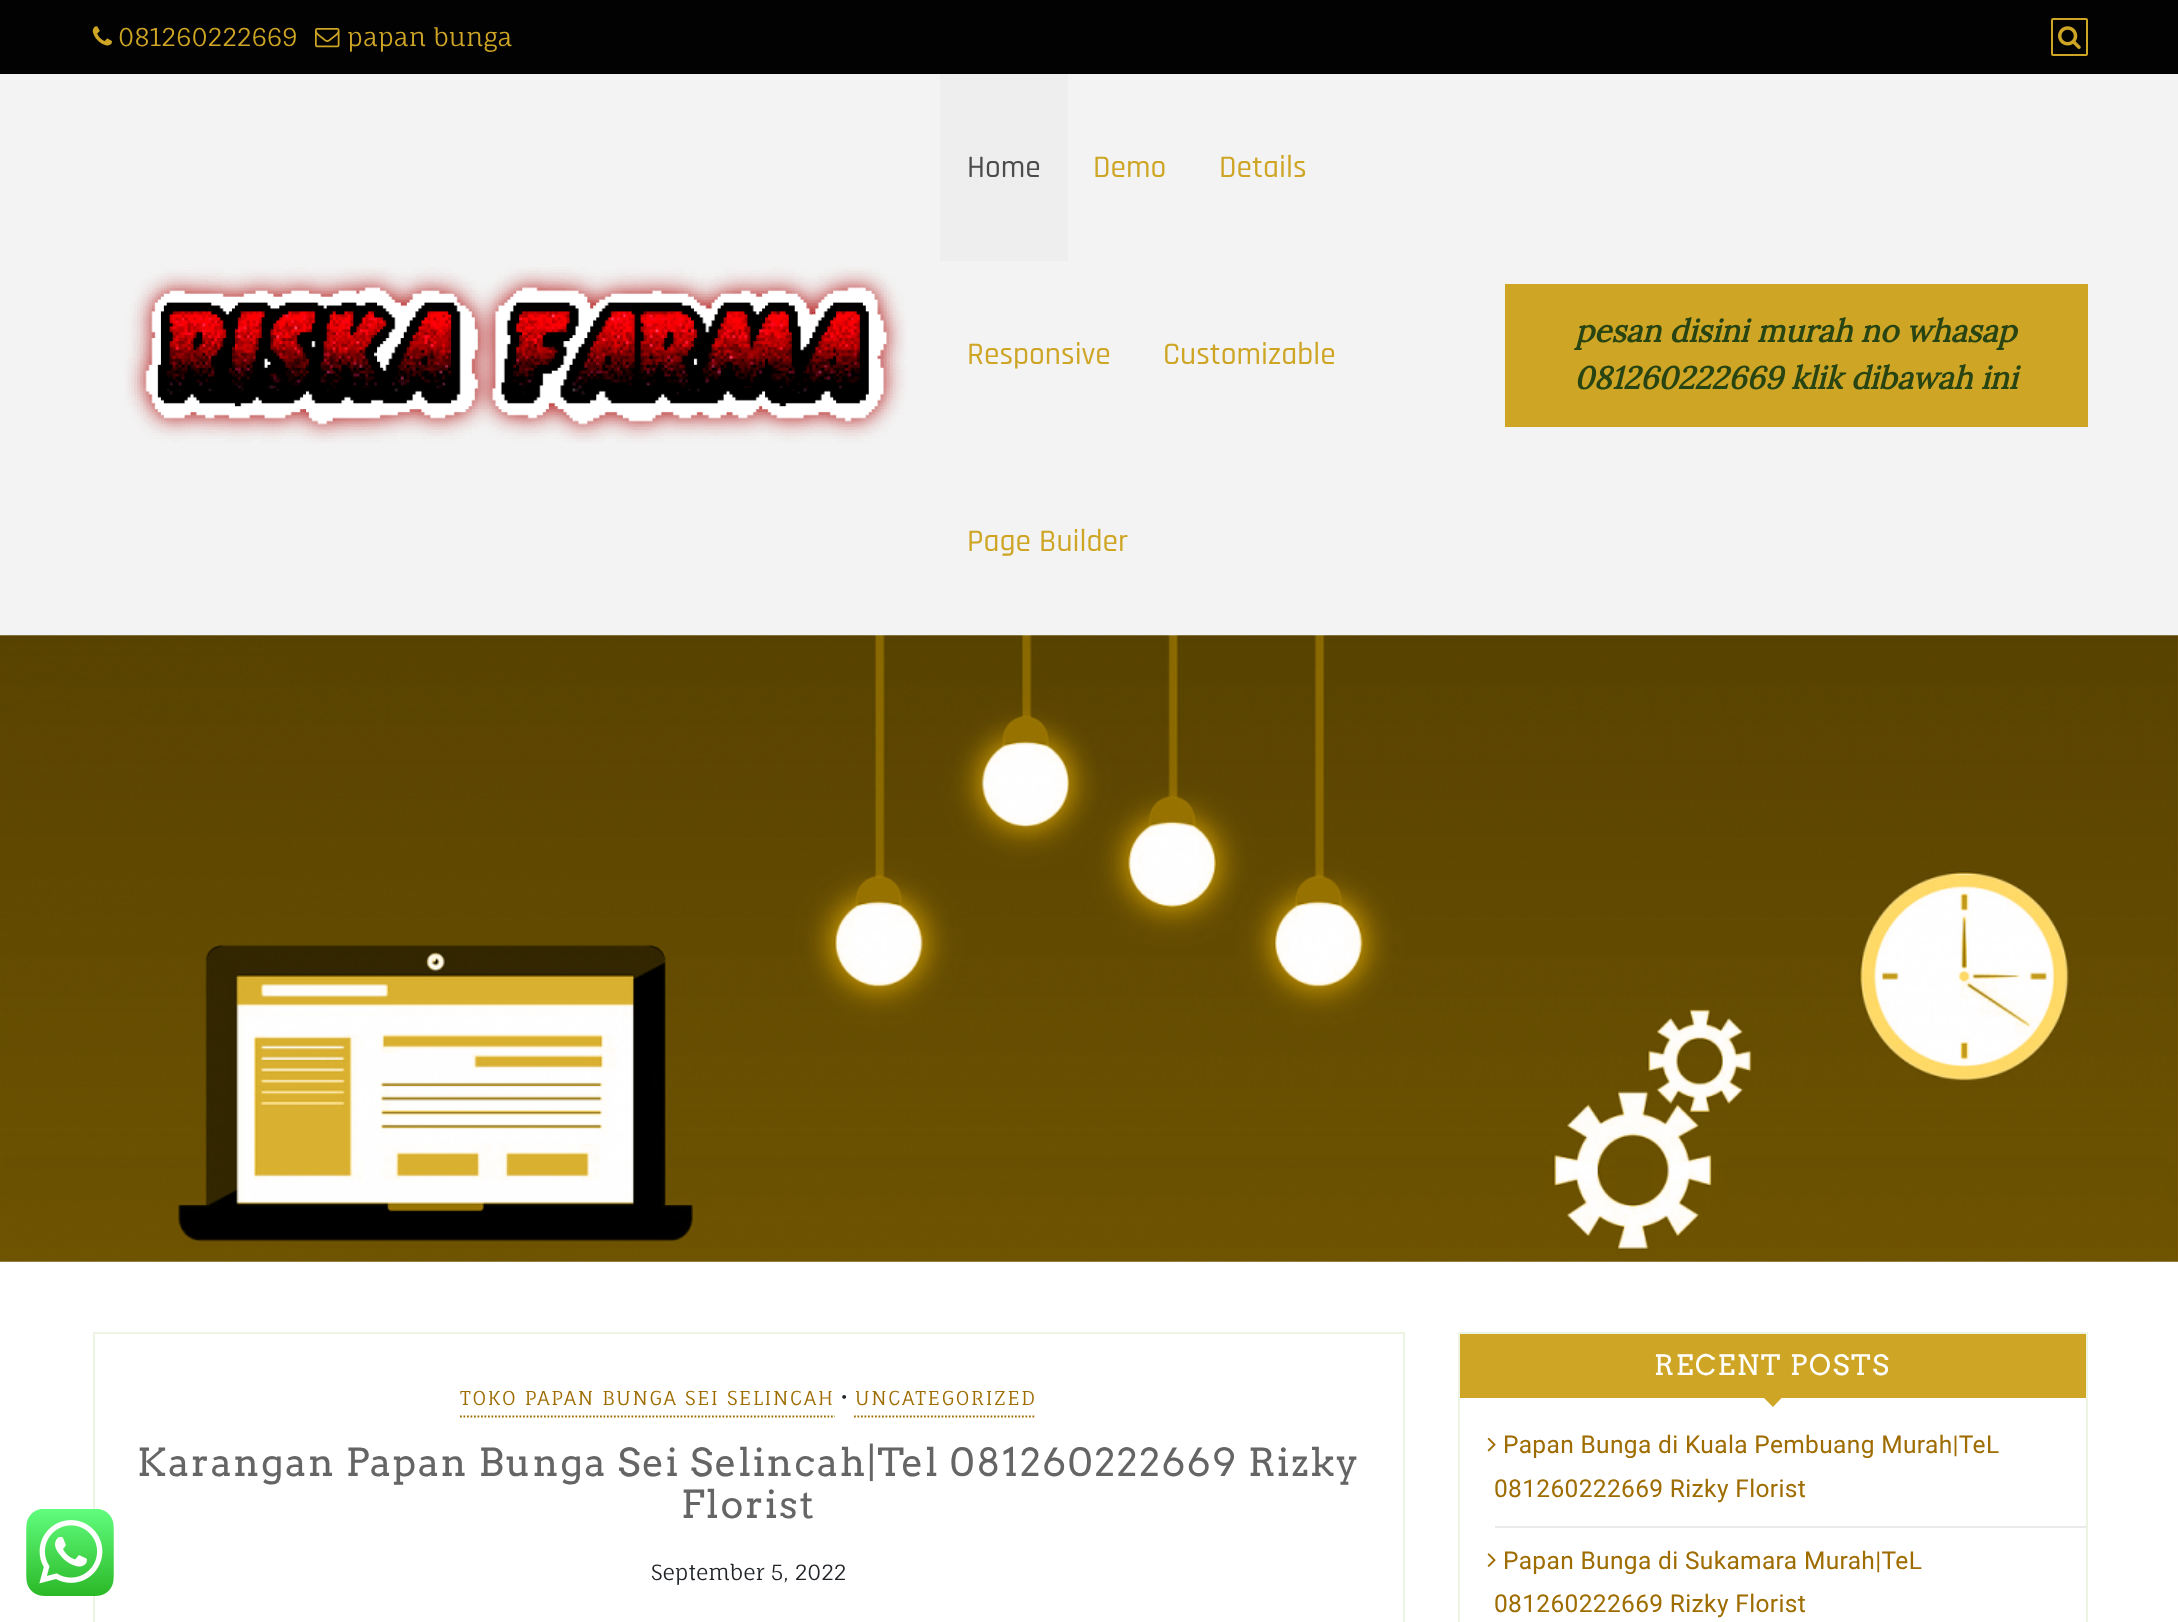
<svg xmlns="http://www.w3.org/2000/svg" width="2178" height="1622">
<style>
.a{font:24.5px Fauna One;fill:#cea525}
.b{font:500 31.5px Rajdhani;fill:#4c4c4c}
.c{font:500 31.5px Rajdhani;fill:#cea525}
.d{font:italic bold 31.5px Lora;fill:#274412}
.e{font:19.25px Fauna One;letter-spacing:1.75px;fill:#9e6c00}
.f{font:24.5px Fauna One;fill:#212529}
.g{font:38.5px Arvo;letter-spacing:1.75px;fill:#656565}
.h{font:21px Fauna One;fill:#212529}
.i{font:28px Arvo;letter-spacing:1.75px;fill:#fff}
.j{font:24.5px Roboto;letter-spacing:0.35px;fill:#9e6c00}
</style>
<rect width="100%" height="100%" fill="#fff"/>
<path fill="#020202" d="M0 0h2178v74H0z"/>
<image href="1.png" x="92" y="26" width="20" height="20"/>
<image href="2.png" x="315" y="28" width="25" height="20"/>
<rect fill="none" stroke="#cea525" stroke-width="2" x="2052" y="19" width="35" height="36" rx="1"/>
<image href="3.png" x="2058" y="26" width="23" height="23"/>
<path fill="#f3f3f3" d="M0 74h2178v561H0z"/>
<image href="4.png" x="125" y="267" width="782" height="176"/>
<path fill="#eee" d="M940 74h128v187H940z"/>
<path fill="#cea525" d="M1505 284h583v143H1505z"/>
<image href="5.png" x="0" y="635" width="2178" height="627"/>
<path fill="none" stroke="#edf5e2" stroke-width="2" d="M94 1333h1310v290H94z"/>
<image href="6.png" x="26" y="1509" width="88" height="87"/>
<path fill="none" stroke="#9e6c00" stroke-width="1.8" stroke-dasharray="1.75 1.75" d="M460 1416.5h375"/>
<path fill="none" stroke="#9e6c00" stroke-width="1.8" stroke-dasharray="1.75 1.75" d="M854 1416.5h182"/>
<path fill="none" stroke="#edf5e2" stroke-width="2" d="M1459 1333h628v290H1459z"/>
<path fill="#cea525" d="M1460 1334h626v64H1460z"/>
<path fill="#cea525" d="M1764 1398h17.5l-8.5 9z"/>
<path fill="#eaeaea" d="M1495 1526h591v2H1495z"/>
<image href="7.png" x="1487" y="1437" width="9" height="15"/>
<image href="8.png" x="1487" y="1553" width="9" height="14"/>
<text class="a" x="118" y="46">081260222669</text>
<text class="a" x="347" y="46">papan bunga</text>
<text class="b" x="967" y="177">Home</text>
<text class="c" x="1093" y="177">Demo</text>
<text class="c" x="1219" y="177">Details</text>
<text class="c" x="967" y="364">Responsive</text>
<text class="c" x="1163" y="364">Customizable</text>
<text class="c" x="967" y="551">Page Builder</text>
<text class="d" x="1575" y="342">pesan disini murah no whasap</text>
<text class="d" x="1574" y="389">081260222669 klik dibawah ini</text>
<text class="e" x="460" y="1405">TOKO PAPAN BUNGA SEI SELINCAH</text>
<text class="f" x="841" y="1405">•</text>
<text class="e" x="855" y="1405">UNCATEGORIZED</text>
<text class="g" x="137" y="1476">Karangan Papan Bunga Sei Selincah|Tel 081260222669 Rizky</text>
<text class="g" x="681" y="1518">Florist</text>
<text class="h" x="651" y="1580">September 5, 2022</text>
<text class="i" x="1654" y="1375">RECENT POSTS</text>
<text class="j" x="1503" y="1453">Papan Bunga di Kuala Pembuang Murah|TeL</text>
<text class="j" x="1494" y="1497">081260222669 Rizky Florist</text>
<text class="j" x="1503" y="1569">Papan Bunga di Sukamara Murah|TeL</text>
<text class="j" x="1494" y="1612">081260222669 Rizky Florist</text>
</svg>
